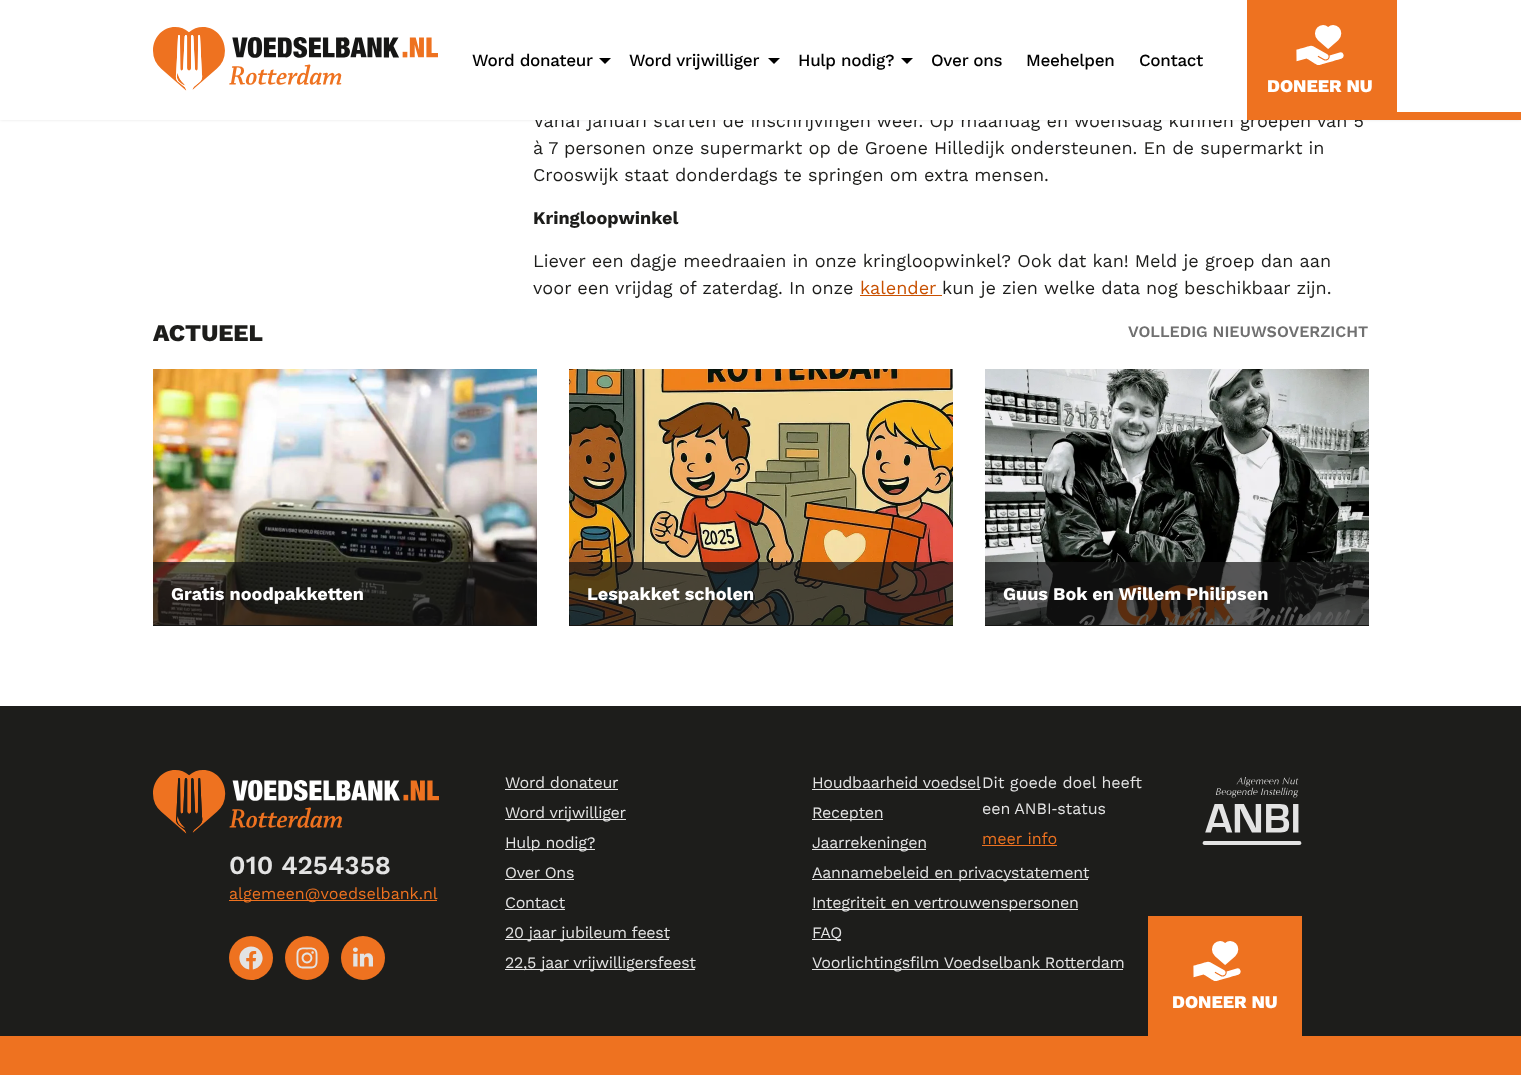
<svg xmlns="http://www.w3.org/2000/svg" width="1521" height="1075">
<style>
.a{font:18px Work Sans;fill:#1d1d1b}
.b{font:500 17px Work Sans;letter-spacing:-0.3px;fill:#000}
.c{font:800 18px Work Sans;fill:#fff}
.d{font:bold 18px Work Sans;fill:#1d1d1b}
.e{font:18px Work Sans;fill:#c85000}
.f{font:800 24px Work Sans;fill:#1d1d1b}
.g{font:600 16px Work Sans;fill:#707070}
.h{font:bold 18px Work Sans;fill:#fff}
.i{font:600 26px Work Sans;fill:#e3e3e3}
.j{font:16px Work Sans;fill:#ee7220}
.k{font:16px Work Sans;letter-spacing:-0.3px;fill:#e3e3e3}
.l{font:16px Work Sans;fill:#e3e3e3}
</style>
<rect width="100%" height="100%" fill="#fff"/>
<path fill="#0000001a" filter="blur(1.5px)" d="M0 0h1521v120H0z"/>
<path fill="#c85000" d="M860 295h82v1H860z"/>
<path fill="#161615" d="M153 625h384v1H153z"/>
<image href="3.png" x="153" y="369" width="384" height="256"/>
<path fill="#161615b3" d="M153 562h384v63H153z"/>
<path fill="#161615" d="M569 625h384v1H569z"/>
<image href="4.png" x="569" y="369" width="384" height="256"/>
<path fill="#161615b3" d="M569 562h384v63H569z"/>
<path fill="#161615" d="M985 625h384v1H985z"/>
<image href="5.png" x="985" y="369" width="384" height="256"/>
<path fill="#161615b3" d="M985 562h384v63H985z"/>
<path fill="#1d1d1b" d="M0 706h1521v330H0z"/>
<image href="6.png" x="153" y="770" width="286" height="64"/>
<path fill="#ee7220" d="M229 900h208v1H229z"/>
<circle fill="#ee7220" cx="251" cy="958" r="22"/>
<image href="7.png" x="239" y="946" width="24" height="24"/>
<circle fill="#ee7220" cx="307" cy="958" r="22"/>
<image href="8.png" x="296" y="947" width="22" height="22"/>
<circle fill="#ee7220" cx="363" cy="958" r="22"/>
<image href="9.png" x="353" y="947" width="20" height="20"/>
<path fill="#e3e3e3" d="M505 789h113v1H505z"/>
<path fill="#e3e3e3" d="M505 819h121v1H505z"/>
<path fill="#e3e3e3" d="M505 849h90v1H505z"/>
<path fill="#e3e3e3" d="M505 879h69v1H505z"/>
<path fill="#e3e3e3" d="M505 909h60v1H505z"/>
<path fill="#e3e3e3" d="M505 939h164v1H505z"/>
<path fill="#e3e3e3" d="M505 969h190v1H505z"/>
<path fill="#e3e3e3" d="M812 789h168v1H812z"/>
<path fill="#e3e3e3" d="M812 819h71v1H812z"/>
<path fill="#e3e3e3" d="M812 849h114v1H812z"/>
<path fill="#e3e3e3" d="M812 879h276v1H812z"/>
<path fill="#e3e3e3" d="M812 909h266v1H812z"/>
<path fill="#e3e3e3" d="M812 939h29v1H812z"/>
<path fill="#e3e3e3" d="M812 969h311v1H812z"/>
<path fill="#ee7220" d="M982 845h75v1H982z"/>
<image href="10.png" x="1202" y="777" width="100" height="68"/>
<path fill="#ee7220" d="M1148 916h154v120H1148z"/>
<image href="2.png" x="1193" y="941" width="48" height="40"/>
<path fill="#ee7220" d="M0 1036h1521v39H0z"/>
<text class="a" x="533" y="127">Vanaf januari starten de inschrijvingen weer. Op maandag en woensdag kunnen groepen van 5</text>
<path fill="#fff" d="M0 0h1521v120H0z"/>
<text class="b" x="1139" y="66">Contact</text>
<text class="b" x="1026" y="66">Meehelpen</text>
<text class="b" x="931" y="66">Over ons</text>
<path fill="#000" d="M901 58h12l-6 6z"/>
<text class="b" x="798" y="66">Hulp nodig?</text>
<path fill="#000" d="M768 58h12l-6 6z"/>
<text class="b" x="629" y="66">Word vrijwilliger</text>
<path fill="#000" d="M599 58h12l-6 6z"/>
<text class="b" x="472" y="66">Word donateur</text>
<path fill="#ee7220" d="M1397 112h124v8H1397z"/>
<path fill="#ee7220" d="M1247 0h150v120H1247z"/>
<image href="2.png" x="1296" y="25" width="48" height="40"/>
<text class="c" x="1267" y="92">DONEER NU</text>
<image href="1.png" x="153" y="27" width="285" height="64"/>
<text class="a" x="533" y="154">à 7 personen onze supermarkt op de Groene Hilledijk ondersteunen. En de supermarkt in</text>
<text class="a" x="533" y="181">Crooswijk staat donderdags te springen om extra mensen.</text>
<text class="d" x="533" y="224">Kringloopwinkel</text>
<text class="a" x="533" y="267">Liever een dagje meedraaien in onze kringloopwinkel? Ook dat kan! Meld je groep dan aan</text>
<text class="a" x="533" y="294">voor een vrijdag of zaterdag. In onze</text>
<text class="e" x="860" y="294">kalender</text>
<text class="a" x="942" y="294">kun je zien welke data nog beschikbaar zijn.</text>
<text class="f" x="153" y="341">ACTUEEL</text>
<text class="g" x="1128" y="337">VOLLEDIG NIEUWSOVERZICHT</text>
<text class="h" x="171" y="600">Gratis noodpakketten</text>
<text class="h" x="587" y="600">Lespakket scholen</text>
<text class="h" x="1003" y="600">Guus Bok en Willem Philipsen</text>
<text class="i" x="229" y="874">010 4254358</text>
<text class="j" x="229" y="899">algemeen@voedselbank.nl</text>
<text class="k" x="505" y="788">Word donateur</text>
<text class="k" x="505" y="818">Word vrijwilliger</text>
<text class="k" x="505" y="848">Hulp nodig?</text>
<text class="k" x="505" y="878">Over Ons</text>
<text class="k" x="505" y="908">Contact</text>
<text class="k" x="505" y="938">20 jaar jubileum feest</text>
<text class="k" x="505" y="968">22,5 jaar vrijwilligersfeest</text>
<text class="k" x="812" y="788">Houdbaarheid voedsel</text>
<text class="k" x="812" y="818">Recepten</text>
<text class="k" x="812" y="848">Jaarrekeningen</text>
<text class="k" x="812" y="878">Aannamebeleid en privacystatement</text>
<text class="k" x="812" y="908">Integriteit en vertrouwenspersonen</text>
<text class="k" x="812" y="938">FAQ</text>
<text class="k" x="812" y="968">Voorlichtingsfilm Voedselbank Rotterdam</text>
<text class="l" x="982" y="788">Dit goede doel heeft</text>
<text class="l" x="982" y="814" word-spacing="-1">een ANBI‑status</text>
<text class="j" x="982" y="844">meer info</text>
<text class="c" x="1172" y="1008">DONEER NU</text>
</svg>
